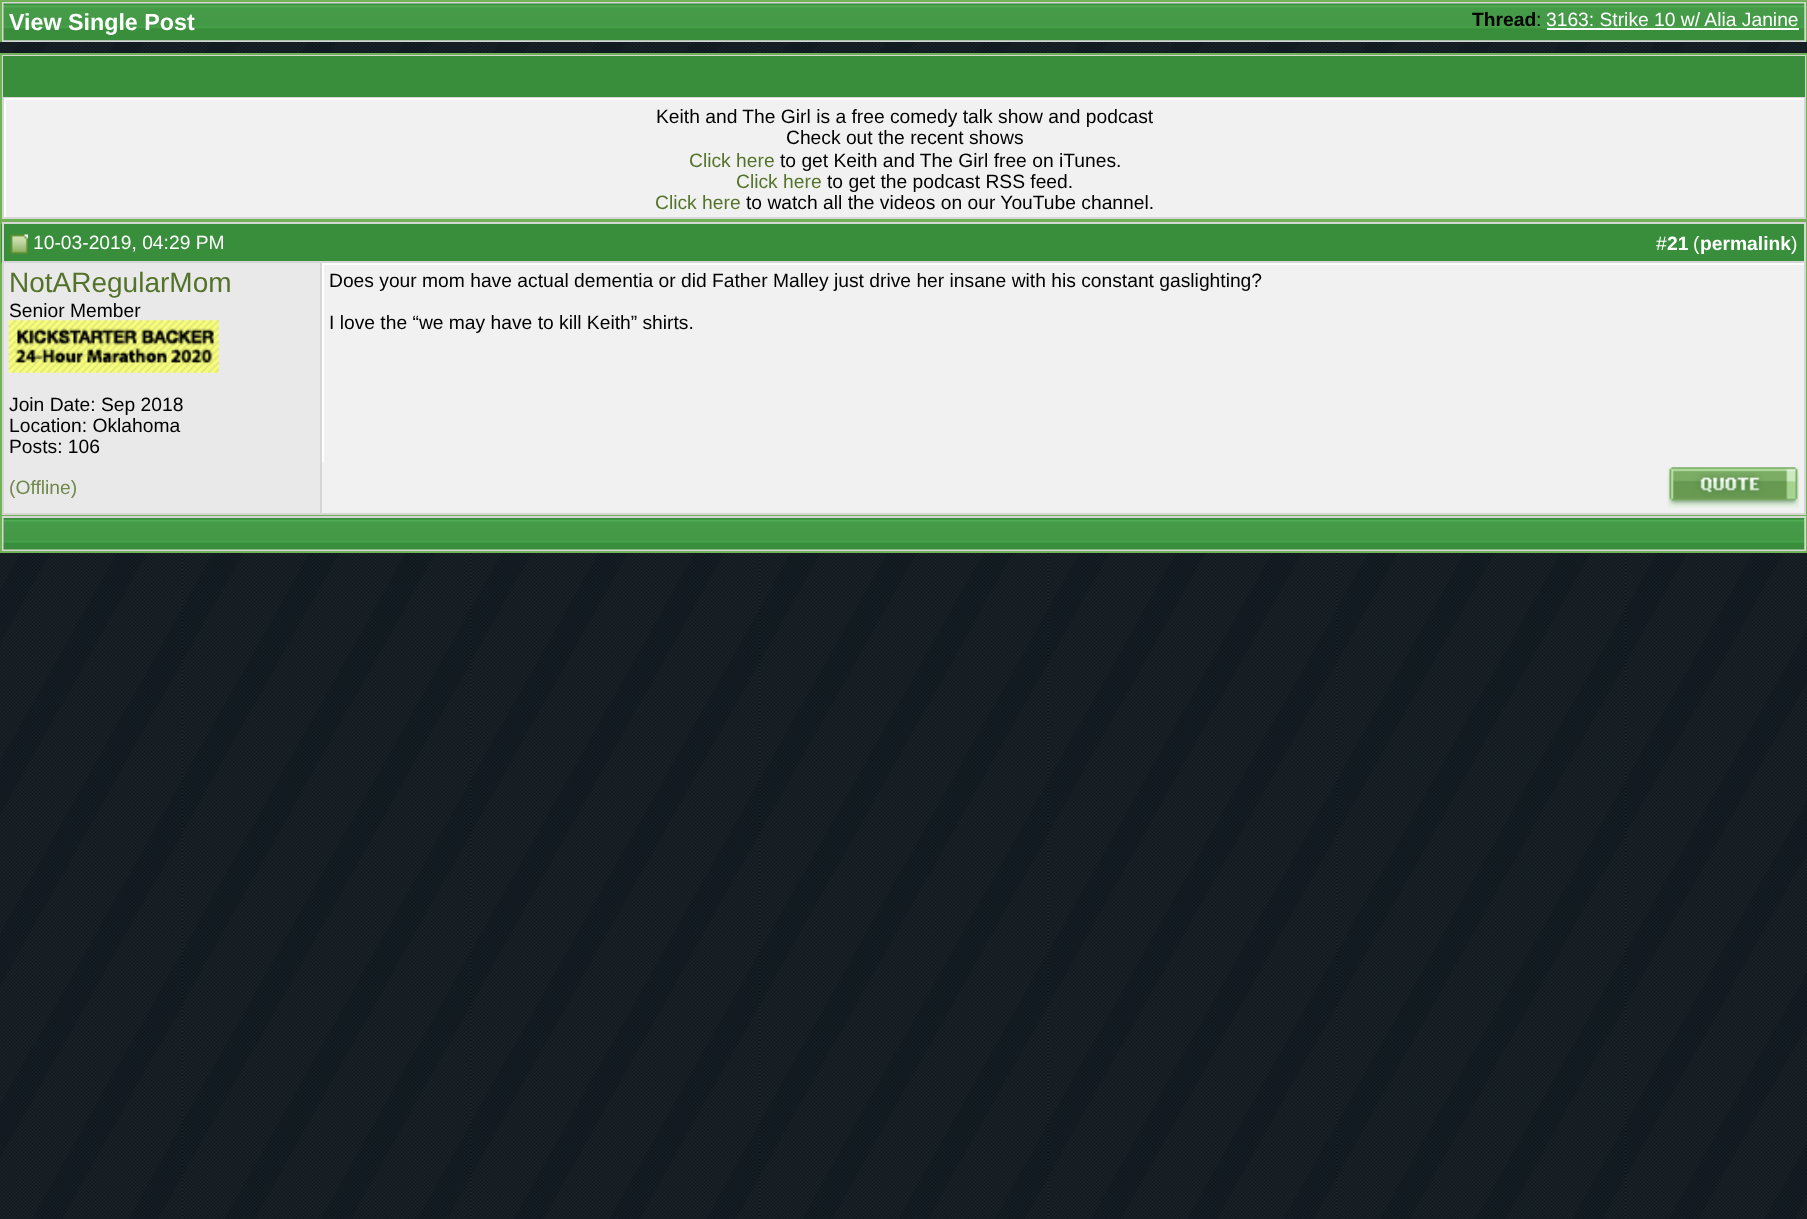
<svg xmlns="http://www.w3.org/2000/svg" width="1807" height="1219">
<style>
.a{font:bold 23.25px Liberation Sans;fill:#fff}
.b{font:bold 19.25px Liberation Sans;fill:#000}
.c{font:19.25px Liberation Sans;fill:#000}
.d{font:19.25px Liberation Sans;fill:#fff}
.e{font:19.25px Liberation Sans;fill:#54732a}
.f{font:bold 19.25px Liberation Sans;fill:#fff}
.g{font:28px Liberation Sans;fill:#54732a}
.h{font:19.25px Liberation Sans;fill:#708a4d}
</style>
<rect width="100%" height="100%" fill="#fff"/>
<image href="1.png" x="0" y="42" width="1807" height="1177"/>
<path fill="#d6d6d6" d="M2 2h1804v40H2z"/>
<path fill="#72b256" d="M0 0h1807v2H0z"/>
<path fill="#72b256" d="M1806 0h1v42H1806z"/>
<path fill="#72b256" d="M0 0h2v42H0z"/>
<image href="2.png" x="3" y="3" width="1802" height="38"/>
<path fill="#fff" d="M1547 28h252v2H1547z"/>
<path fill="#d6d6d6" stroke="#72b256" stroke-width="2" d="M1 54h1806v166H1z"/>
<path fill="#388e3a" d="M3 56h1802v41H3z"/>
<path fill="#f1f1f1" d="M6 100h1798v117H6z"/>
<path fill="#fff" d="M4 98h1800v2H4z"/>
<path fill="#fff" d="M4 98h2v119H4z"/>
<path fill="none" stroke="#72b256" stroke-width="2" d="M1 222h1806v293H1z"/>
<path fill="#388e3a" d="M1 224h321v39H1z"/>
<path fill="#d6d6d6" d="M2 222h1804v2H2z"/>
<path fill="#d6d6d6" d="M2 261h320v2H2z"/>
<path fill="#d6d6d6" d="M2 222h2v240H2z"/>
<image href="3.png" x="10" y="234" width="18" height="20"/>
<path fill="#388e3a" d="M322 224h1482v37H322z"/>
<path fill="#d6d6d6" d="M1804 222h2v41H1804z"/>
<path fill="#d6d6d6" d="M322 261h1484v2H322z"/>
<path fill="#e9e9e9" d="M4 263h316v250H4z"/>
<path fill="#d6d6d6" d="M320 263h2v252H320z"/>
<image href="4.png" x="8" y="320" width="211" height="53"/>
<path fill="#f1f1f1" d="M324 265h1480v197H324z"/>
<path fill="#fff" d="M322 263h1484v2H322z"/>
<path fill="#d6d6d6" d="M1804 263h2v252H1804z"/>
<path fill="#fff" d="M322 263h2v199H322z"/>
<path fill="#d6d6d6" d="M2 513h1804v2H2z"/>
<path fill="#d6d6d6" d="M2 462h2v53H2z"/>
<path fill="#f1f1f1" d="M322 462h1482v51H322z"/>
<image href="5.png" x="1667" y="467" width="132" height="41"/>
<path fill="#d6d6d6" d="M2 516h1804v35H2z"/>
<path fill="#72b256" d="M1806 516h1v37H1806z"/>
<path fill="#72b256" d="M0 551h1807v2H0z"/>
<path fill="#72b256" d="M0 516h2v37H0z"/>
<image href="6.png" x="3" y="518" width="1802" height="32"/>
<text class="a" x="9" y="30">View Single Post</text>
<text class="b" x="1472" y="26">Thread</text>
<text class="c" x="1536" y="26">:</text>
<text class="d" x="1546" y="26">3163: Strike 10 w/ Alia Janine</text>
<text class="c" x="656" y="123">Keith and The Girl is a free comedy talk show and podcast</text>
<text class="c" x="786" y="144">Check out the recent shows</text>
<text class="e" x="689" y="167">Click here</text>
<text class="c" x="780" y="167">to get Keith and The Girl free on iTunes.</text>
<text class="e" x="736" y="188">Click here</text>
<text class="c" x="827" y="188">to get the podcast RSS feed.</text>
<text class="e" x="655" y="209">Click here</text>
<text class="c" x="746" y="209">to watch all the videos on our YouTube channel.</text>
<text class="d" x="33" y="249">10-03-2019, 04:29 PM</text>
<text class="d" x="1656" y="250">#</text>
<text class="f" x="1667" y="250">21</text>
<text class="d" x="1693" y="250">(</text>
<text class="f" x="1700" y="250">permalink</text>
<text class="d" x="1791" y="250">)</text>
<text class="g" x="9" y="292">NotARegularMom</text>
<text class="c" x="9" y="317">Senior Member</text>
<text class="c" x="9" y="411">Join Date: Sep 2018</text>
<text class="c" x="9" y="432">Location: Oklahoma</text>
<text class="c" x="9" y="453">Posts: 106</text>
<text class="c" x="329" y="287">Does your mom have actual dementia or did Father Malley just drive her insane with his constant gaslighting?</text>
<text class="c" x="329" y="329">I love the “we may have to kill Keith” shirts.</text>
<text class="h" x="9" y="494">(Offline)</text>
</svg>
